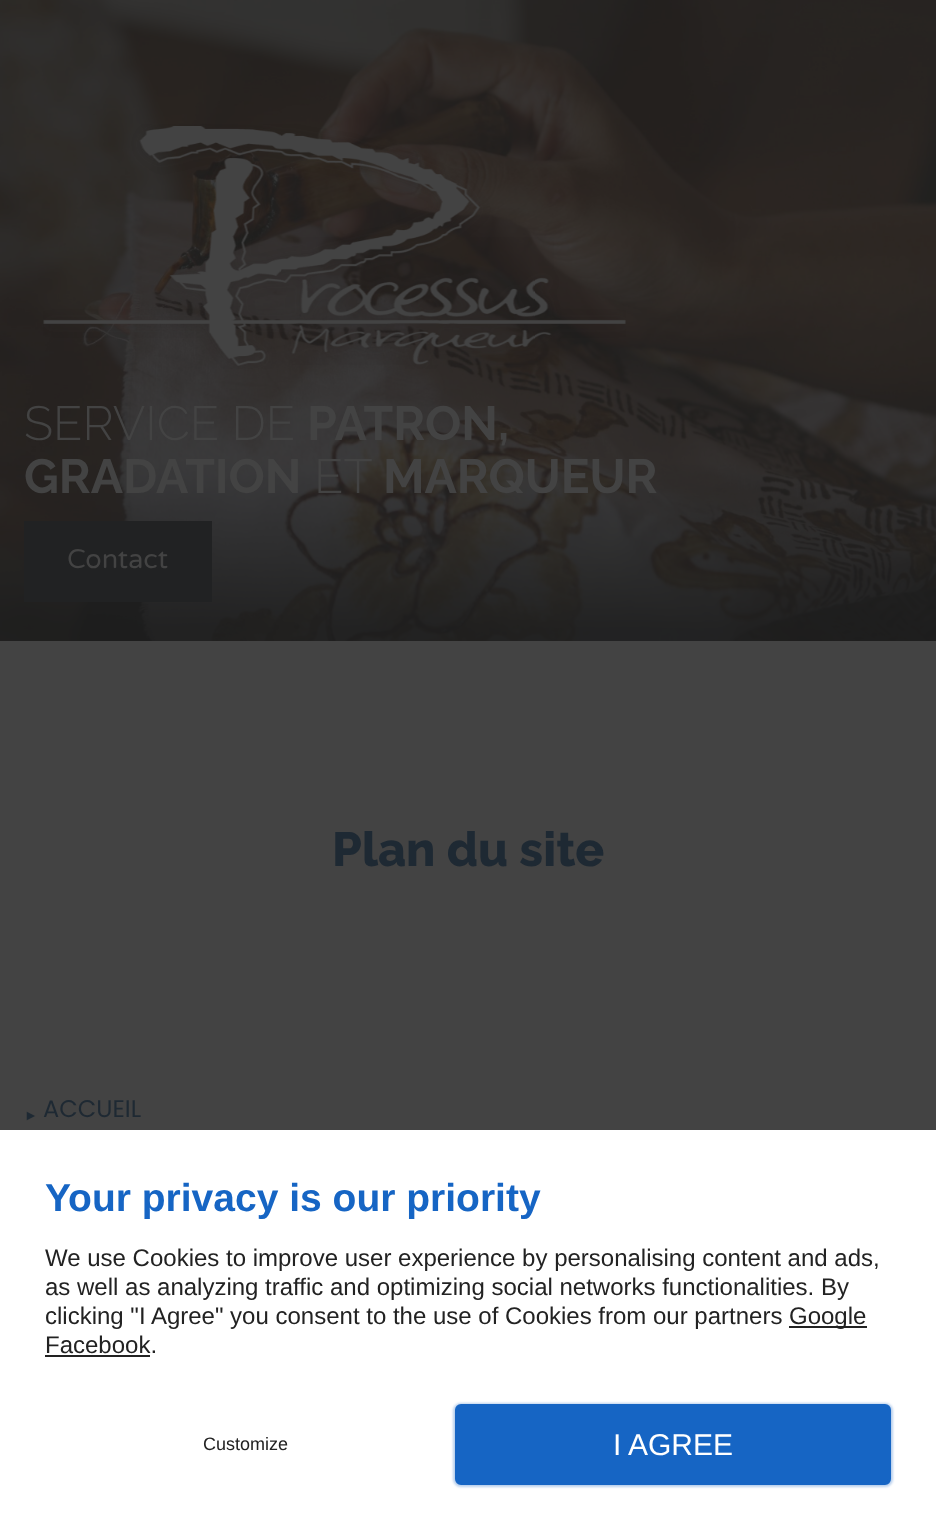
<svg xmlns="http://www.w3.org/2000/svg" width="936" height="1530">
<style>
.a{font:100 48px Raleway;fill:#434343}
.b{font:100 48px 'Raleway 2';fill:#434343}
.c{font:27px Varela Round;fill:#434343}
.d{font:100 48px 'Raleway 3';fill:#1e2933}
.e{font:bold 14px Liberation Sans;fill:#1e2933}
.f{font:24px Poppins;fill:#1e2933}
.g{font:bold 39px Liberation Sans;fill:#1665c4}
.h{font:24px Liberation Sans;fill:#222}
.i{font:18px Liberation Sans;fill:#222}
.j{font:30px Liberation Sans;fill:#fff}
</style>
<rect width="100%" height="100%" fill="#434343"/>
<image href="1.png" x="0" y="0" width="936" height="641"/>
<image href="2.png" x="43" y="124" width="583" height="245"/>
<path fill="#212223" d="M24 521h188v81H24z"/>
<path fill="#fff" d="M0 1130h936v400H0z"/>
<path fill="#222" d="M789 1326h78v2H789z"/>
<path fill="#222" d="M45 1355h105v2H45z"/>
<rect fill="#1665c44d" filter="blur(1px)" x="453" y="1403" width="440" height="84" rx="8"/>
<rect fill="#1665c4" stroke="#1665c4" stroke-width="3" x="456.5" y="1405.5" width="433" height="78" rx="4.5"/>
<text class="a" x="24" y="440">SERVICE DE</text>
<text class="b" x="307" y="440">PATRON,</text>
<text class="b" x="24" y="493">GRADATION</text>
<text class="a" x="314" y="493">ET</text>
<text class="b" x="383" y="493">MARQUEUR</text>
<text class="c" x="67" y="568">Contact</text>
<text class="d" x="332" y="866">Plan du site</text>
<text class="e" x="24" y="1120">►</text>
<text class="f" x="43" y="1117">ACCUEIL</text>
<text class="g" x="45" y="1211">Your privacy is our priority</text>
<text class="h" x="45" y="1266">We use Cookies to improve user experience by personalising content and ads,</text>
<text class="h" x="45" y="1295">as well as analyzing traffic and optimizing social networks functionalities. By</text>
<text class="h" x="45" y="1324">clicking "I Agree" you consent to the use of Cookies from our partners</text>
<text class="h" x="789" y="1324">Google</text>
<text class="h" x="45" y="1353">Facebook.</text>
<text class="i" x="203" y="1450">Customize</text>
<text class="j" x="613" y="1455">I AGREE</text>
</svg>
